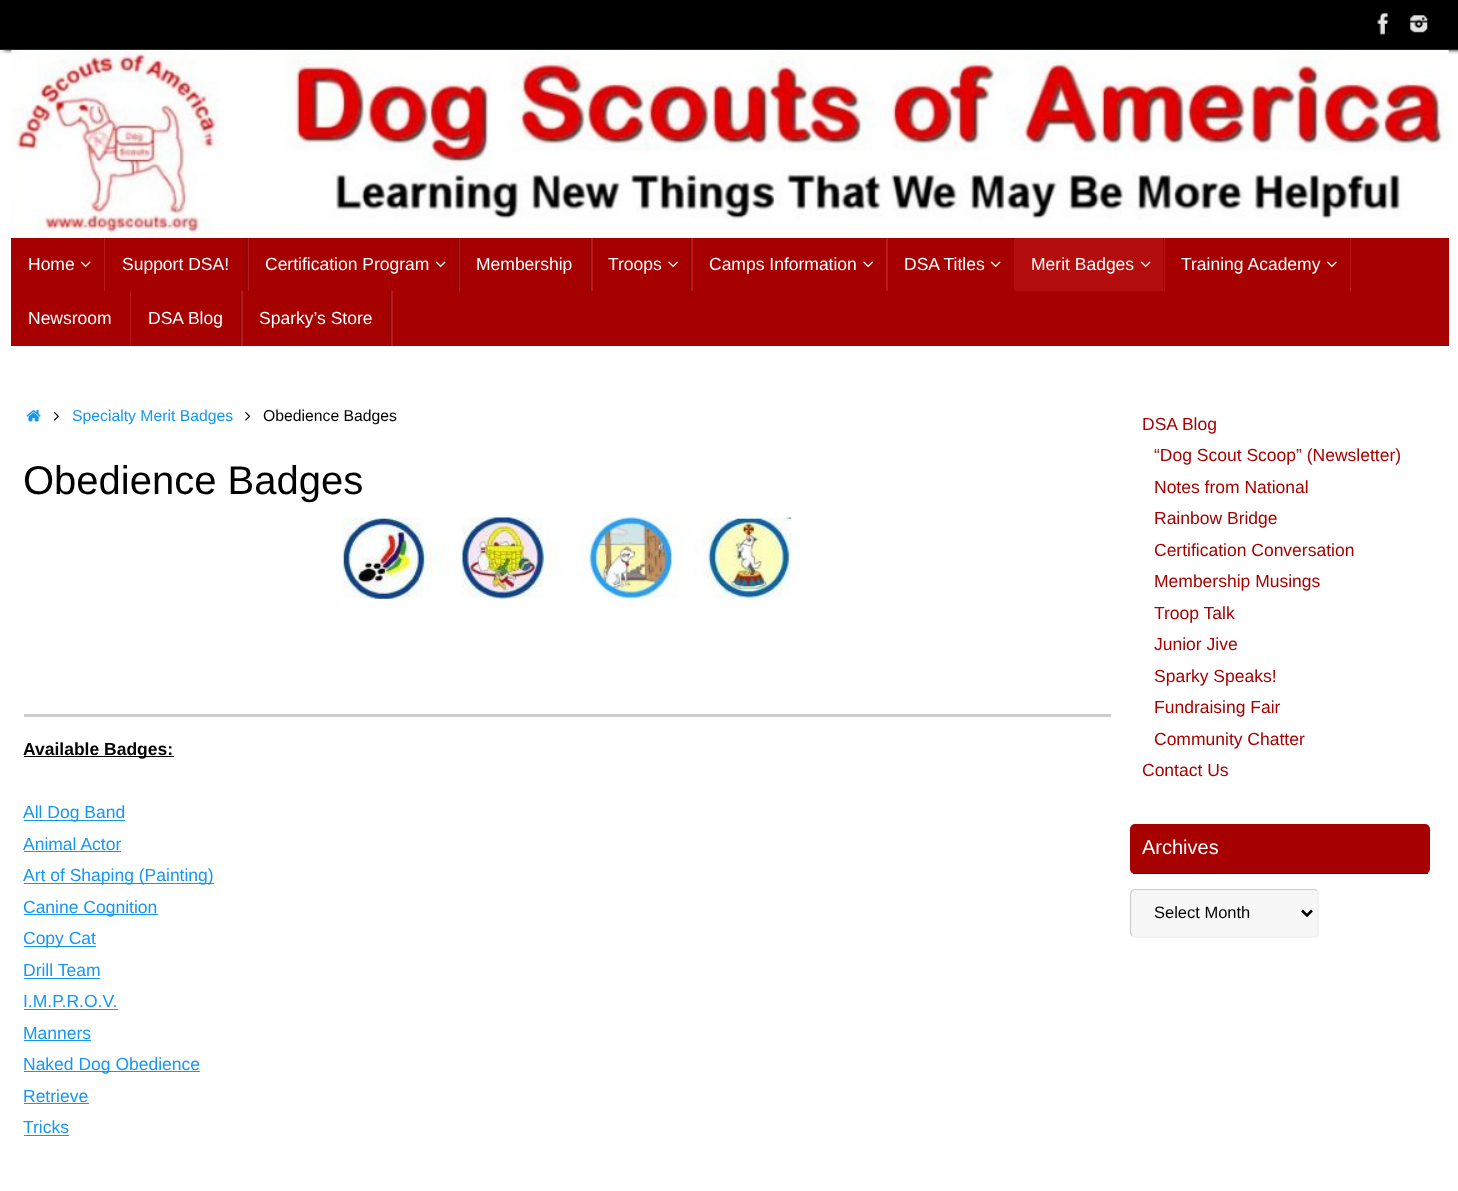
<svg xmlns="http://www.w3.org/2000/svg" width="1458" height="1191">
<style>
.a{font:17.5px Liberation Sans;fill:#fff}
.b{font:15.75px Liberation Sans;fill:#1696f3}
.c{font:15.75px Liberation Sans;fill:#000}
.d{font:40px Liberation Sans;fill:#000}
.e{font:bold 17.5px Liberation Sans;fill:#000}
.f{font:17.5px Liberation Sans;fill:#1696f3}
.g{font:17.5px Liberation Sans;fill:#a60000}
.h{font:20px Liberation Sans;fill:#fff}
.i{font:16.5px Liberation Sans;fill:#000}
</style>
<rect width="100%" height="100%" fill="#fff"/>
<path fill="#000" filter="blur(2px)" d="M4 0h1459v50H4z"/>
<path fill="#000" d="M0 0h1458v49H0z"/>
<path fill="#282828" d="M0 49h1458v1H0z"/>
<image href="1.png" x="1377" y="13" width="12" height="22"/>
<image href="2.png" x="1410" y="15" width="18" height="18"/>
<image href="3.png" x="11" y="50" width="1438" height="187"/>
<path fill="#a60000" d="M11 238h1438v108H11z"/>
<path fill="#be1818" d="M104 238h1v53H104z"/>
<path fill="#800" d="M103 238h1v53H103z"/>
<image href="4.png" x="80" y="261" width="11" height="7"/>
<path fill="#be1818" d="M248 238h1v53H248z"/>
<path fill="#800" d="M246 238h1v53H246z"/>
<path fill="#be1818" d="M459 238h1v53H459z"/>
<path fill="#800" d="M458 238h1v53H458z"/>
<image href="4.png" x="435" y="261" width="11" height="7"/>
<path fill="#be1818" d="M591 238h2v53H591z"/>
<path fill="#800" d="M590 238h1v53H590z"/>
<path fill="#be1818" d="M691 238h2v53H691z"/>
<path fill="#800" d="M690 238h1v53H690z"/>
<image href="5.png" x="668" y="261" width="10" height="7"/>
<path fill="#be1818" d="M886 238h2v53H886z"/>
<path fill="#800" d="M885 238h1v53H885z"/>
<image href="5.png" x="863" y="261" width="10" height="7"/>
<path fill="#800" d="M1013 238h1v53H1013z"/>
<image href="4.png" x="990" y="261" width="11" height="7"/>
<path fill="#b30d0d" d="M1014 238h149v53H1014z"/>
<path fill="#be1818" d="M1164 238h1v53H1164z"/>
<path fill="#800" d="M1163 238h1v53H1163z"/>
<image href="6.png" x="1140" y="261" width="11" height="7"/>
<path fill="#be1818" d="M1350 238h1v53H1350z"/>
<path fill="#800" d="M1349 238h1v53H1349z"/>
<image href="7.png" x="1327" y="261" width="10" height="7"/>
<path fill="#be1818" d="M13 291h117v55h1v-55z"/>
<path fill="#800" d="M129 291h1v55H129z"/>
<path fill="#be1818" d="M131 291h110v55h2v-55z"/>
<path fill="#800" d="M240 291h1v55H240z"/>
<path fill="#be1818" d="M243 291h148v55h2v-55z"/>
<path fill="#800" d="M390 291h1v55H390z"/>
<image href="8.png" x="26" y="410" width="15" height="12"/>
<image href="9.png" x="53" y="412" width="6" height="9"/>
<image href="10.png" x="245" y="412" width="6" height="9"/>
<image href="11.png" x="342" y="517" width="450" height="82"/>
<path fill="#ccc" d="M24 714h1087v3H24z"/>
<path fill="#000" d="M24 756h150v1H24z"/>
<path fill="#1696f3" d="M24 820h101v1H24z"/>
<path fill="#1696f3" d="M24 851h97v1H24z"/>
<path fill="#1696f3" d="M24 883h190v1H24z"/>
<path fill="#1696f3" d="M24 914h134v1H24z"/>
<path fill="#1696f3" d="M24 946h72v1H24z"/>
<path fill="#1696f3" d="M24 978h76v1H24z"/>
<path fill="#1696f3" d="M24 1009h94v1H24z"/>
<path fill="#1696f3" d="M24 1040h67v1H24z"/>
<path fill="#1696f3" d="M24 1071h176v1H24z"/>
<path fill="#1696f3" d="M24 1103h65v1H24z"/>
<path fill="#1696f3" d="M24 1135h45v1H24z"/>
<rect fill="#a60000" x="1130" y="824" width="300" height="50" rx="5"/>
<path fill="#7e0000" d="M1133 873h295v1H1133z"/>
<rect fill="#f7f7f7" x="1130" y="889" width="189" height="49" rx="5"/>
<path fill="none" stroke="#eee" stroke-width="1.2" d="M1317 890.5c2 2.5 1 7.5 1 9.5v26c0 3.5 1.5 11-4 11h-179l-3-1.5"/>
<path fill="none" stroke="#ccc" stroke-width="1.2" d="M1132 935.5c-2.5-2-1.5-7-1.5-9.5v-26c0-3-1-10.5 4.5-10.5h179l3 1"/>
<path fill="none" stroke="#000" stroke-width="2.5" d="M1302 910.5l5 5l5-5"/>
<text class="a" x="28" y="270">Home</text>
<text class="a" x="122" y="270">Support DSA!</text>
<text class="a" x="265" y="270">Certification Program</text>
<text class="a" x="476" y="270">Membership</text>
<text class="a" x="608" y="270">Troops</text>
<text class="a" x="709" y="270">Camps Information</text>
<text class="a" x="904" y="270">DSA Titles</text>
<text class="a" x="1031" y="270">Merit Badges</text>
<text class="a" x="1181" y="270">Training Academy</text>
<text class="a" x="28" y="324">Newsroom</text>
<text class="a" x="148" y="324">DSA Blog</text>
<text class="a" x="259" y="324">Sparky’s Store</text>
<text class="b" x="72" y="421">Specialty Merit Badges</text>
<text class="c" x="263" y="421">Obedience Badges</text>
<text class="d" x="23" y="494">Obedience Badges</text>
<text class="e" x="23" y="755">Available Badges:</text>
<text class="f" x="23" y="818">All Dog Band</text>
<text class="f" x="23" y="850">Animal Actor</text>
<text class="f" x="23" y="881">Art of Shaping (Painting)</text>
<text class="f" x="23" y="913">Canine Cognition</text>
<text class="f" x="23" y="944">Copy Cat</text>
<text class="f" x="23" y="976">Drill Team</text>
<text class="f" x="23" y="1007">I.M.P.R.O.V.</text>
<text class="f" x="23" y="1039">Manners</text>
<text class="f" x="23" y="1070">Naked Dog Obedience</text>
<text class="f" x="23" y="1102">Retrieve</text>
<text class="f" x="23" y="1133">Tricks</text>
<text class="g" x="1142" y="430">DSA Blog</text>
<text class="g" x="1154" y="461">“Dog Scout Scoop” (Newsletter)</text>
<text class="g" x="1154" y="493">Notes from National</text>
<text class="g" x="1154" y="524">Rainbow Bridge</text>
<text class="g" x="1154" y="556">Certification Conversation</text>
<text class="g" x="1154" y="587">Membership Musings</text>
<text class="g" x="1154" y="619">Troop Talk</text>
<text class="g" x="1154" y="650">Junior Jive</text>
<text class="g" x="1154" y="682">Sparky Speaks!</text>
<text class="g" x="1154" y="713">Fundraising Fair</text>
<text class="g" x="1154" y="745">Community Chatter</text>
<text class="g" x="1142" y="776">Contact Us</text>
<text class="h" x="1142" y="854">Archives</text>
<text class="i" x="1154" y="918">Select Month</text>
</svg>
